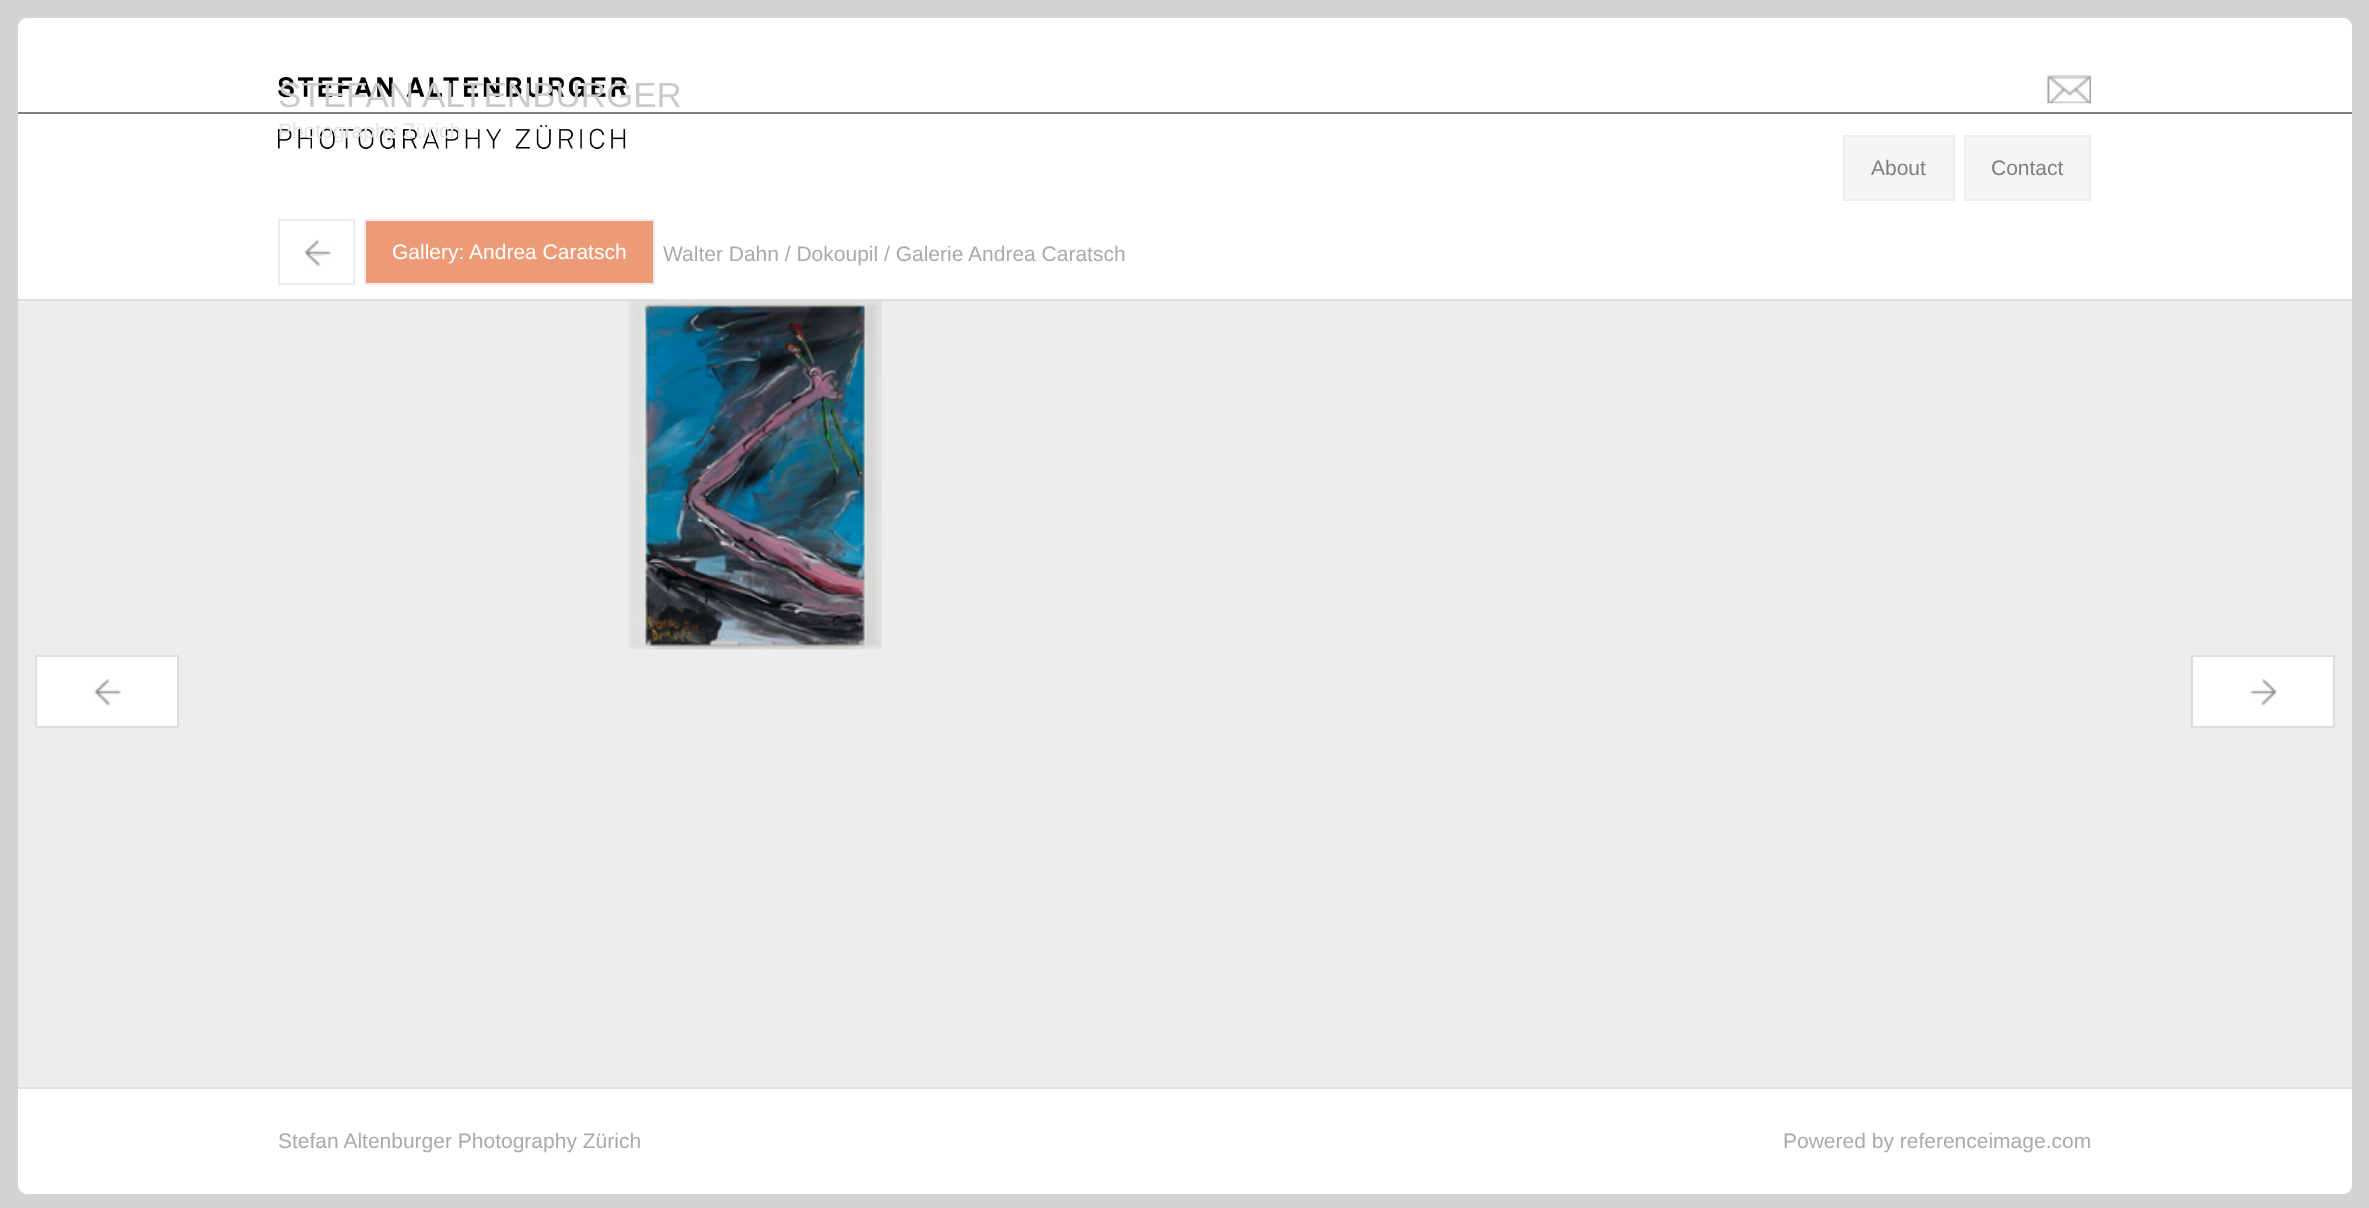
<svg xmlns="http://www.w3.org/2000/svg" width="2369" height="1208">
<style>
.a{font:35px Liberation Sans;fill:#cacaca}
.b{font:21px Liberation Sans;fill:#e3e3e3}
.c{font:21px Liberation Sans;fill:#808080}
.d{font:21px Liberation Sans;fill:#fff}
.e{font:21px Liberation Sans;fill:#aaa}
</style>
<rect width="100%" height="100%" fill="#d4d4d4"/>
<path fill="#fff" d="M27 18h2316c5 0 9 4 9 9v274h-2334v-274c0-5 4-9 9-9z"/>
<path fill="#dedede" d="M18 299h2334v2H18z"/>
<image href="1.png" x="278" y="77" width="349" height="21"/>
<image href="2.png" x="2047" y="75" width="44" height="29"/>
<path fill="#808080" d="M18 112h2334v2H18z"/>
<image href="3.png" x="278" y="125" width="348" height="24"/>
<path fill="#f5f5f5" stroke="#ededed" stroke-width="2" d="M1844 136h110v64H1844z"/>
<path fill="#f5f5f5" stroke="#ededed" stroke-width="2" d="M1965 136h125v64H1965z"/>
<image href="4.png" x="304" y="239" width="27" height="27"/>
<path fill="none" stroke="#ededed" stroke-width="2" d="M279 220h75v64H279z"/>
<path fill="#ec9b76" stroke="#ededed" stroke-width="2" d="M365 220h289v64H365z"/>
<path fill="#ededed" d="M18 301h2334v786H18z"/>
<path fill="#fff" d="M37 657h140v69H37z"/>
<image href="5.png" x="94" y="679" width="27" height="27"/>
<path fill="none" stroke="#dedede" stroke-width="2" d="M36 656h142v71H36z"/>
<path fill="#fff" d="M2193 657h140v69H2193z"/>
<image href="6.png" x="2250" y="679" width="27" height="27"/>
<path fill="none" stroke="#dedede" stroke-width="2" d="M2192 656h142v71H2192z"/>
<image href="7.png" x="629" y="301" width="253" height="349"/>
<path fill="#fff" d="M18 1087h2334v98c0 5-4 9-9 9h-2316c-5 0-9-4-9-9z"/>
<path fill="#dedede" d="M18 1087h2334v2H18z"/>
<text class="a" x="278" y="107">STEFAN ALTENBURGER</text>
<text class="b" x="278" y="138">Photography Zürich</text>
<text class="c" x="1871" y="175">About</text>
<text class="c" x="1991" y="175">Contact</text>
<text class="b" x="306" y="259">←</text>
<text class="d" x="392" y="259">Gallery: Andrea Caratsch</text>
<text class="e" x="663" y="261">Walter Dahn / Dokoupil / Galerie Andrea Caratsch</text>
<text class="e" x="278" y="1148">Stefan Altenburger Photography Zürich</text>
<text class="e" x="1783" y="1148">Powered by referenceimage.com</text>
</svg>
